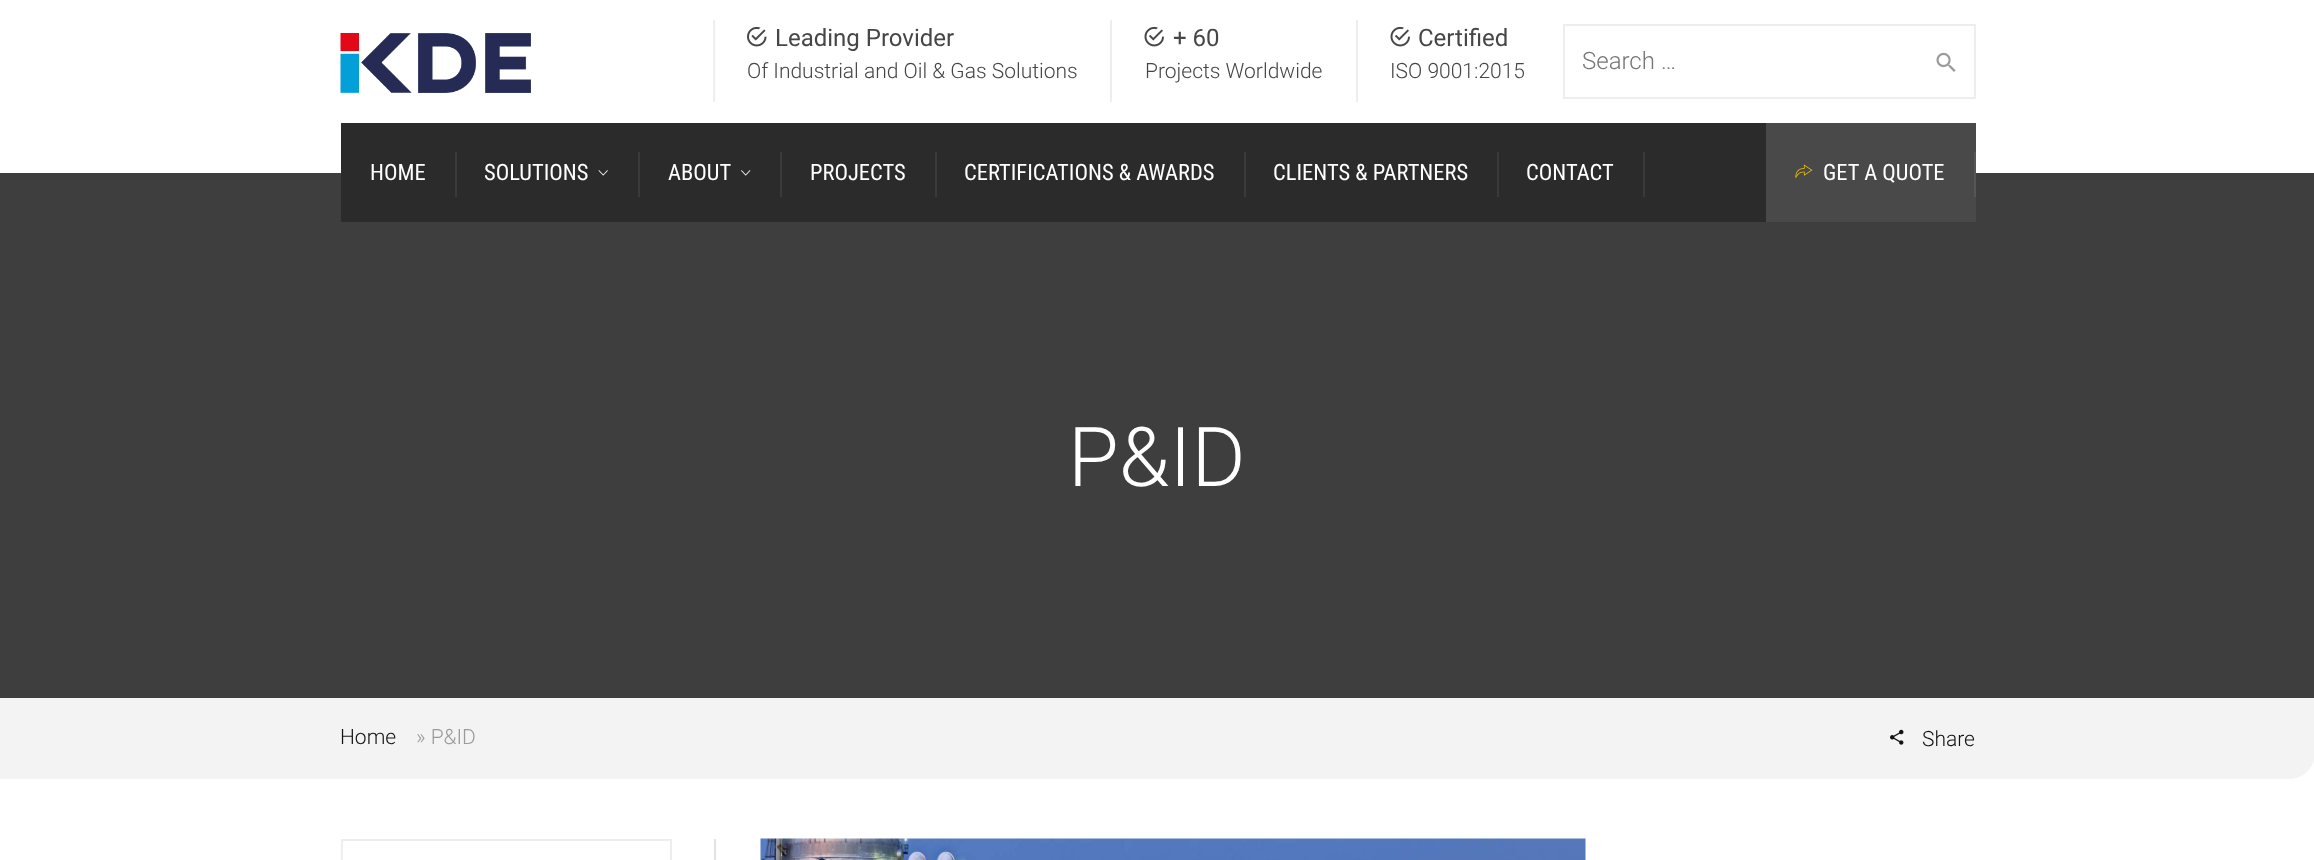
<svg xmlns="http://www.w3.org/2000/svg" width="2314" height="860">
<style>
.a{font:24px Roboto;fill:#464646}
.b{font:300 21px Roboto;fill:#464646}
.c{font:300 24px Roboto;fill:#767676}
.d{font:22.5px Roboto Condensed;fill:#fff}
.e{font:300 82.5px Roboto;fill:#fff}
.f{font:300 21px Roboto;fill:#131313}
.g{font:300 21px Roboto;fill:#9a9a9a}
</style>
<rect width="100%" height="100%" fill="#fff"/>
<image href="1.png" x="340" y="33" width="191" height="60"/>
<path fill="#eee" d="M713 20h2v82H713z"/>
<image href="2.png" x="747" y="26" width="20" height="21"/>
<path fill="#eee" d="M1110 20h2v82H1110z"/>
<image href="3.png" x="1144" y="26" width="20" height="21"/>
<path fill="#eee" d="M1356 20h2v82H1356z"/>
<image href="3.png" x="1390" y="26" width="20" height="21"/>
<path fill="none" stroke="#eee" stroke-width="2" d="M1564 25h411v73H1564z"/>
<image href="4.png" x="1936" y="52" width="20" height="20"/>
<path fill="#f3f3f3" d="M0 672h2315v81c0 14.5-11.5 26-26 26h-2289z"/>
<path fill="#3e3e3e" d="M0 173h2314v525H0z"/>
<path fill="#2b2b2b" d="M341 123h1425v99H341z"/>
<path fill="#3a3a3a" d="M455 152h2v45H455z"/>
<path fill="#3a3a3a" d="M638 152h2v45H638z"/>
<image href="5.png" x="598" y="170" width="10" height="6"/>
<path fill="#3a3a3a" d="M780 152h2v45H780z"/>
<image href="6.png" x="741" y="170" width="10" height="6"/>
<path fill="#3a3a3a" d="M935 152h2v45H935z"/>
<path fill="#3a3a3a" d="M1244 152h2v45H1244z"/>
<path fill="#3a3a3a" d="M1497 152h2v45H1497z"/>
<path fill="#3a3a3a" d="M1643 152h2v45H1643z"/>
<path fill="#494949" d="M1766 123h210v99H1766z"/>
<image href="7.png" x="1795" y="164" width="18" height="14"/>
<path fill="#565656" d="M1974 152h2v45H1974z"/>
<image href="8.png" x="1890" y="729" width="14" height="16"/>
<path fill="#e2e2e2" d="M714 839h2v21H714z"/>
<path fill="none" stroke="#eee" stroke-width="2" d="M342 840h329v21H342z"/>
<image href="9.png" x="760" y="838" width="826" height="22"/>
<text class="a" x="775" y="46">Leading Provider</text>
<text class="b" x="747" y="78">Of Industrial and Oil &amp; Gas Solutions</text>
<text class="a" x="1173" y="46">+ 60</text>
<text class="b" x="1145" y="78">Projects Worldwide</text>
<text class="a" x="1418" y="46">Certified</text>
<text class="b" x="1390" y="78">ISO 9001:2015</text>
<text class="c" x="1582" y="69">Search …</text>
<text class="d" x="370" y="180">HOME</text>
<text class="d" x="484" y="180">SOLUTIONS</text>
<text class="d" x="668" y="180">ABOUT</text>
<text class="d" x="810" y="180">PROJECTS</text>
<text class="d" x="964" y="180">CERTIFICATIONS &amp; AWARDS</text>
<text class="d" x="1273" y="180">CLIENTS &amp; PARTNERS</text>
<text class="d" x="1526" y="180">CONTACT</text>
<text class="d" x="1823" y="180">GET A QUOTE</text>
<text class="e" x="1068" y="486">P&amp;ID</text>
<text class="f" x="340" y="744">Home</text>
<text class="g" x="416" y="744">» P&amp;ID</text>
<text class="f" x="1922" y="746">Share</text>
</svg>
